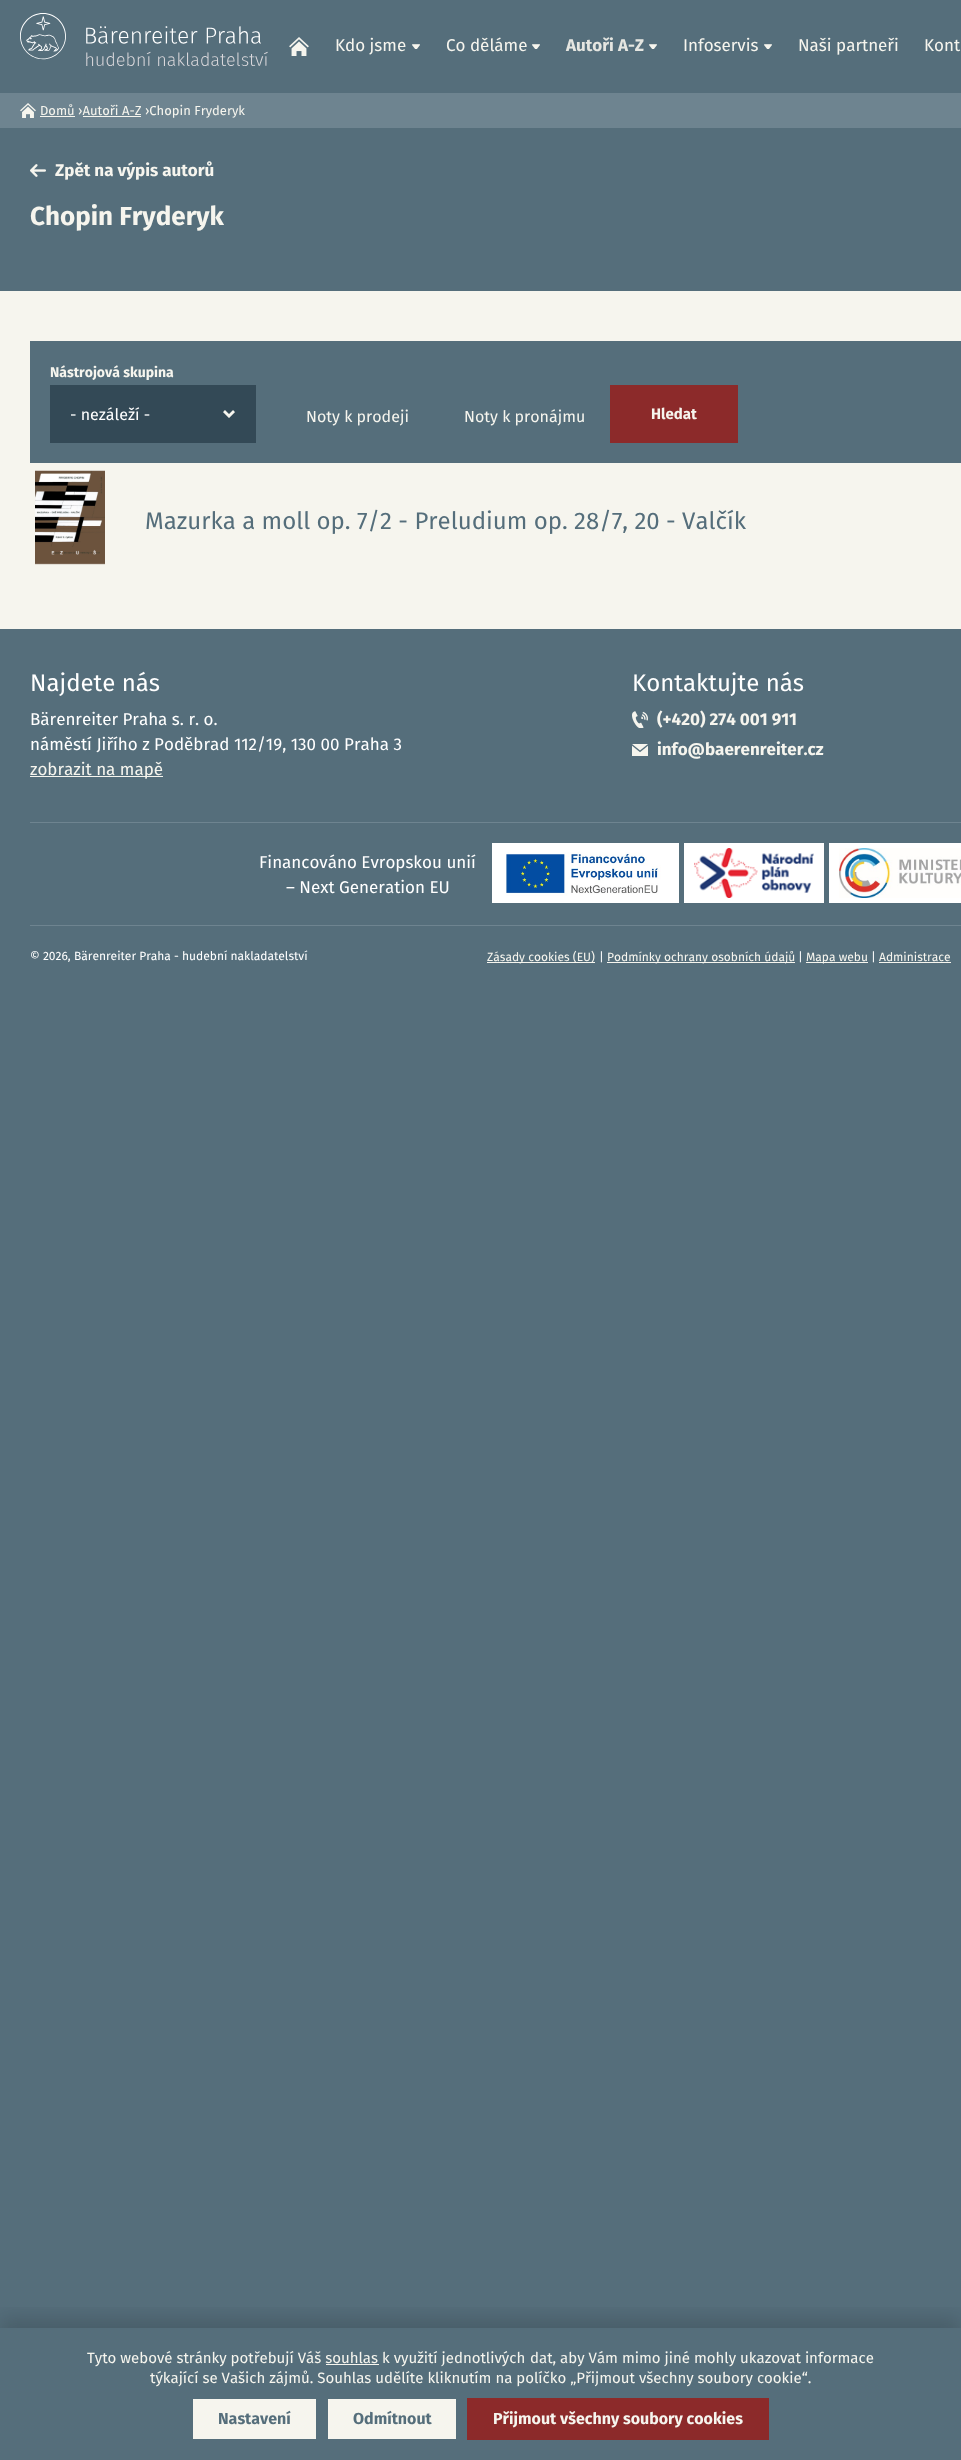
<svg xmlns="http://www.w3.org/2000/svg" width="961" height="2460">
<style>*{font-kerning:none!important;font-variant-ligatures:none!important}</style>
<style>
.a{font:17px Fira Sans;fill:#f6f5ee}
.b{font:bold 17px Fira Sans;fill:#e5e6e1}
.c{font:13px Fira Sans;fill:#f6f5ee}
.d{font:bold 17px Fira Sans;fill:#f6f5ee}
.e{font:bold 26px Fira Sans;fill:#f6f5ee}
.f{font:bold 14px Fira Sans;fill:#f6f5ee}
.g{font:16px Fira Sans;fill:#fff}
.h{font:16px Fira Sans;fill:#f6f5ee}
.i{font:bold 15px Fira Sans;fill:#f6f5ee}
.j{font:24px Fira Sans;fill:#556e7b}
.k{font:24px Fira Sans;fill:#fff}
.l{font:17px Fira Sans;fill:#fff}
.m{font:12px Fira Sans;fill:#fff}
.n{font:12px Fira Sans;fill:#f6f5ee}
.o{font:15px Fira Sans;fill:#f6f5ee}
.p{font:bold 16px Fira Sans;fill:#556e7b}
.q{font:bold 16px Fira Sans;fill:#f6f5ee}
</style>
<defs>
<clipPath id="clip1"><path d="M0 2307h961v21H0z"/></clipPath>
</defs>
<rect width="100%" height="100%" fill="#556e7b"/>
<image href="1.png" x="20" y="13" width="248" height="53"/>
<image href="2.png" x="289" y="37" width="20" height="19"/>
<image href="3.png" x="412" y="44" width="8" height="5"/>
<image href="3.png" x="532" y="44" width="8" height="5"/>
<image href="3.png" x="649" y="44" width="8" height="5"/>
<image href="3.png" x="764" y="44" width="8" height="5"/>
<path fill="#f6f5ee" d="M0 291h961v338H0z"/>
<path fill="#6e8490" d="M0 93h961v35H0z"/>
<image href="4.png" x="20" y="103" width="16" height="15"/>
<path fill="#f6f5ee" d="M40 116h35v1H40z"/>
<path fill="#f6f5ee" d="M83 116h58v1H83z"/>
<image href="5.png" x="30" y="164" width="16" height="13"/>
<path fill="#556e7b" d="M30 341h931v122H30z"/>
<path fill="#334956" d="M50 385h206v58H50z"/>
<image href="6.png" x="223" y="410" width="12" height="8"/>
<path fill="#8c2a2a" d="M610 385h128v58H610z"/>
<image href="7.png" x="35" y="470" width="70" height="95"/>
<path fill="#f6f5ee" d="M30 776h133v1H30z"/>
<image href="8.png" x="632" y="711" width="16" height="17"/>
<image href="9.png" x="632" y="744" width="16" height="12"/>
<path fill="#6e8490" d="M30 822h931v1H30z"/>
<path fill="#6e8490" d="M30 925h931v1H30z"/>
<path fill="#fff" d="M492 843h187v60H492z"/>
<image href="10.png" x="506" y="852" width="155" height="44"/>
<path fill="#fff" d="M684 843h140v60H684z"/>
<image href="11.png" x="694" y="848" width="120" height="50"/>
<path fill="#fff" d="M829 843h132v60H829z"/>
<image href="12.png" x="839" y="848" width="122" height="50"/>
<path fill="#f6f5ee" d="M487 962h108v1H487z"/>
<path fill="#f6f5ee" d="M607 962h188v1H607z"/>
<path fill="#f6f5ee" d="M806 962h62v1H806z"/>
<path fill="#f6f5ee" d="M879 962h72v1H879z"/>
<g clip-path="url(#clip1)">
<path fill="#00000026" filter="blur(10px)" d="M0 2318h961v132H0z"/>
</g>
<path fill="#f6f5ee" d="M326 2364h53v1H326z"/>
<path fill="#f6f5ee" d="M193 2399h123v40H193z"/>
<path fill="#f6f5ee" d="M328 2399h128v40H328z"/>
<path fill="#8c2a2a" d="M467 2398h302v42H467z"/>
<text class="a" x="335" y="51">Kdo jsme</text>
<text class="a" x="446" y="51">Co děláme</text>
<text class="b" x="566" y="51">Autoři A-Z</text>
<text class="a" x="683" y="51">Infoservis</text>
<text class="a" x="798" y="51">Naši partneři</text>
<text class="a" x="924" y="51">Kont</text>
<text class="c" x="40" y="115">Domů ›Autoři A-Z ›Chopin Fryderyk</text>
<text class="d" x="55" y="176">Zpět na výpis autorů</text>
<text class="e" x="30" y="225">Chopin Fryderyk</text>
<text class="f" x="50" y="377">Nástrojová skupina</text>
<text class="g" x="70" y="420">- nezáleží -</text>
<text class="h" x="306" y="422">Noty k prodeji</text>
<text class="h" x="464" y="422">Noty k pronájmu</text>
<text class="i" x="651" y="419">Hledat</text>
<text class="j" x="145" y="529">Mazurka a moll op. 7/2 - Preludium op. 28/7, 20 - Valčík</text>
<text class="k" x="30" y="691">Najdete nás</text>
<text class="l" x="30" y="725">Bärenreiter Praha s. r. o.</text>
<text class="l" x="30" y="750">náměstí Jiřího z Poděbrad 112/19, 130 00 Praha 3</text>
<text class="a" x="30" y="775">zobrazit na mapě</text>
<text class="k" x="632" y="691">Kontaktujte nás</text>
<text class="d" x="657" y="725">(+420) 274 001 911</text>
<text class="d" x="657" y="755">info@baerenreiter.cz</text>
<text class="l" x="259" y="868">Financováno Evropskou unií</text>
<text class="l" x="286" y="893">– Next Generation EU</text>
<text class="m" x="30" y="960">© 2026, Bärenreiter Praha - hudební nakladatelství</text>
<text class="n" x="487" y="961">Zásady cookies (EU)</text>
<text class="m" x="599" y="961">|</text>
<text class="n" x="607" y="961">Podmínky ochrany osobních údajů</text>
<text class="m" x="798" y="961">|</text>
<text class="n" x="806" y="961">Mapa webu</text>
<text class="m" x="871" y="961">|</text>
<text class="n" x="879" y="961">Administrace</text>
<text class="o" x="87" y="2363">Tyto webové stránky potřebují Váš souhlas k využití jednotlivých</text>
<text class="o" x="530" y="2363">dat, aby Vám mimo jiné mohly ukazovat informace</text>
<text class="o" x="150" y="2383">týkající se Vašich zájmů. Souhlas udělíte kliknutím na políčko „Přijmout všechny soubory cookie“.</text>
<text class="p" x="218" y="2424">Nastavení</text>
<text class="p" x="353" y="2424">Odmítnout</text>
<text class="q" x="493" y="2424">Přijmout všechny soubory cookies</text>
</svg>
